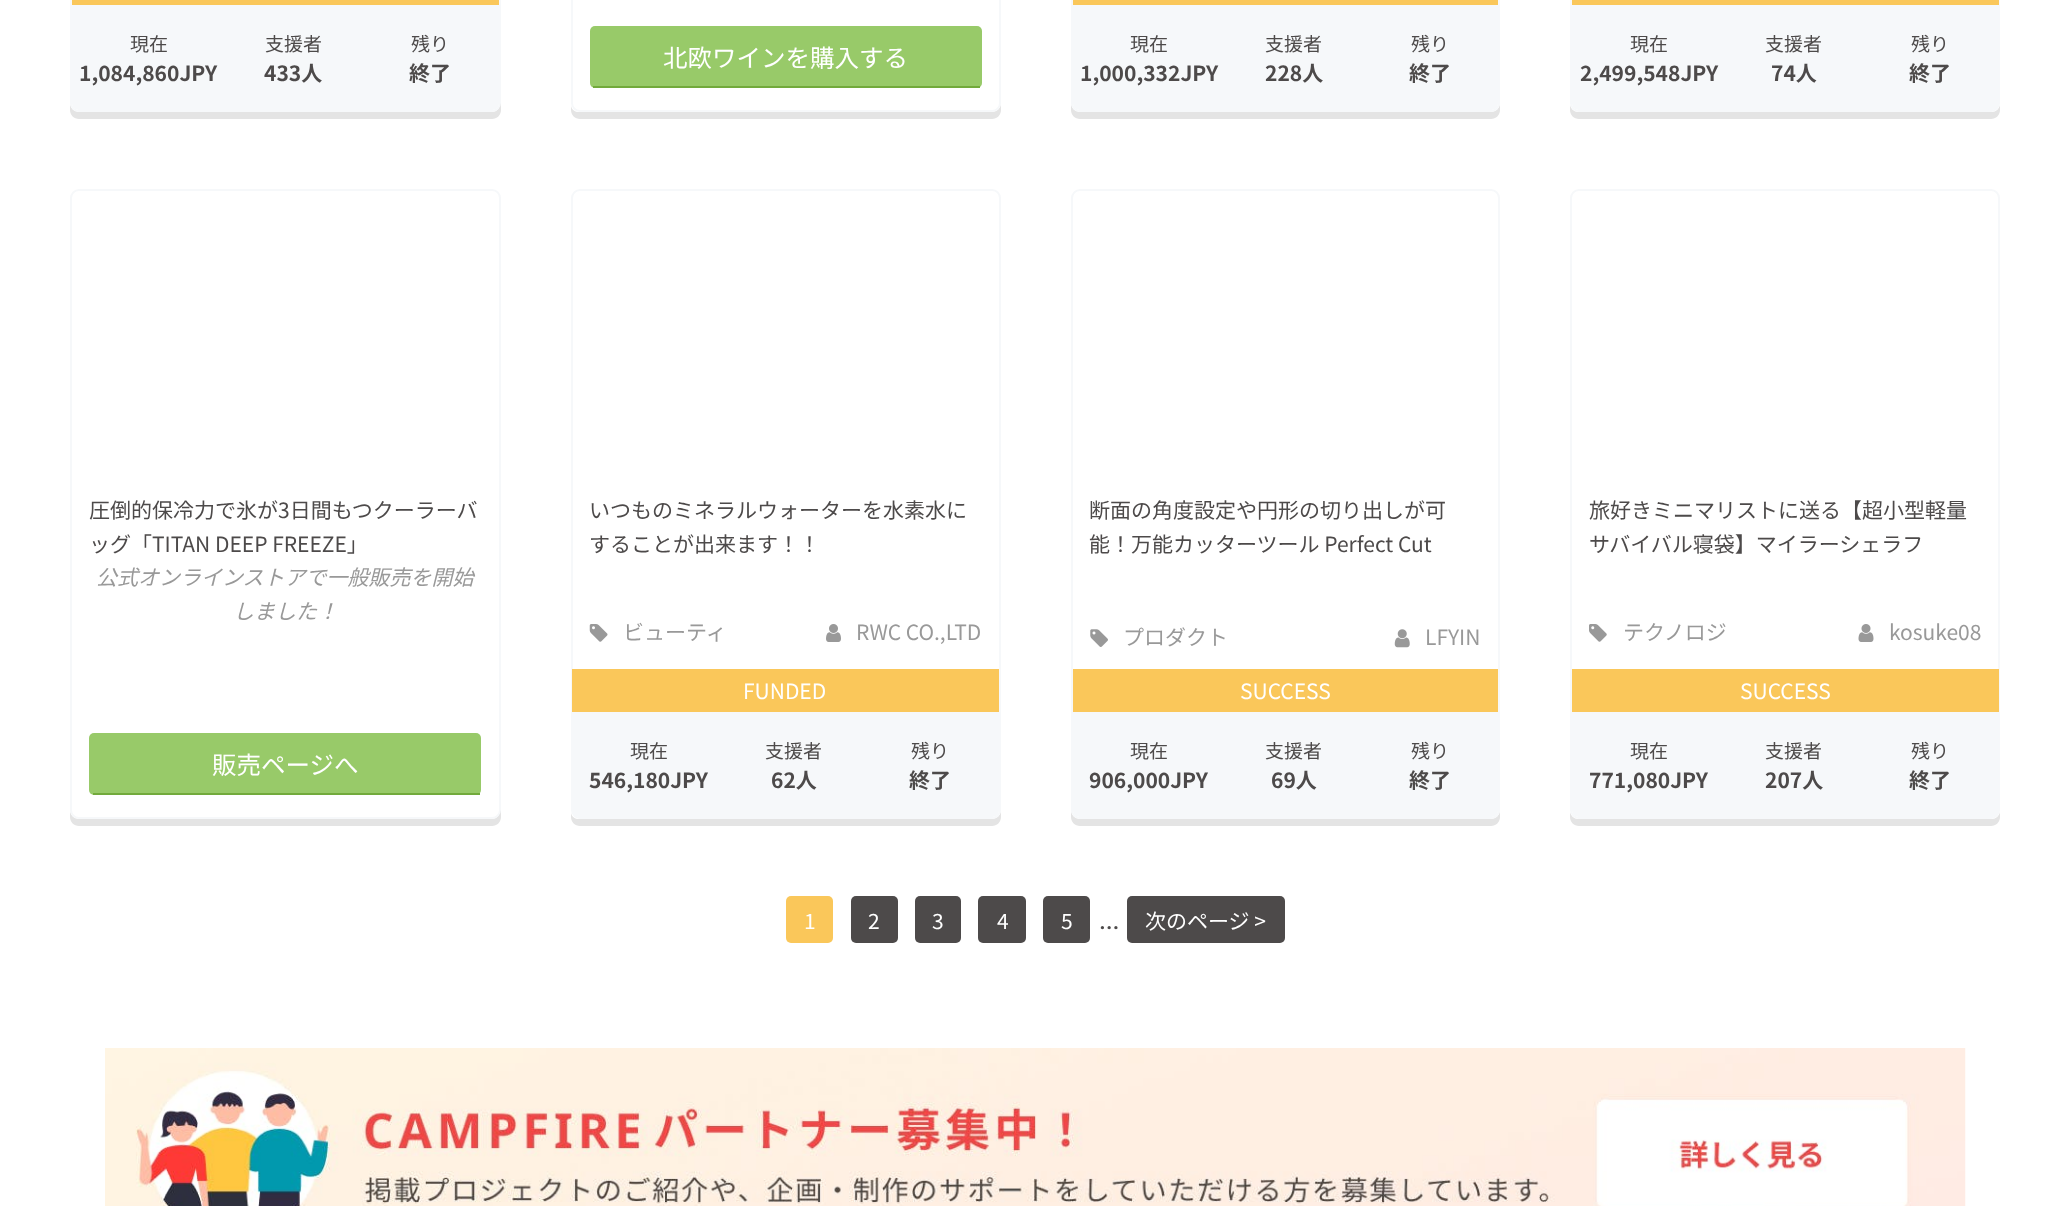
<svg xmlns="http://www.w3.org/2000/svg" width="2070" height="1206">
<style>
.a{font:19px Noto Sans JP;fill:#4d4a4a}
.b{font:bold 21px Noto Sans JP;fill:#4d4a4a}
.c{font:24.5px Noto Sans JP;fill:#fff}
.d{font:21px Noto Sans JP;fill:#4d4a4a}
.e{font:italic 21px Noto Sans JP;fill:#999}
.f{font:21px Noto Sans JP;fill:#999}
.g{font:21px Noto Sans JP;fill:#fff}
.h{font:24.5px Noto Sans JP;fill:#4d4a4a}
</style>
<rect width="100%" height="100%" fill="#fff"/>
<path fill="#e4e4e4" d="M70 103v7c0 5 4 9 9 9h413c5 0 9-4 9-9v-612l-1-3v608c0 5-3 9-8 9h-413c-5 0-9-4-9-9z"/>
<rect fill="none" stroke="#f6f8fa" stroke-width="2" x="71" y="-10" width="429" height="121" rx="8"/>
<path fill="#fac75a" d="M72 0h427v5H72z"/>
<path fill="#f6f8fa" d="M72 5h427v98c0 4-3 7-7 7h-413c-4 0-7-3-7-7z"/>
<path fill="#e4e4e4" d="M571 106v4c0 5 4 9 9 9h412c5 0 9-4 9-9v-7c0 5-4 9-9 9h-413c-4 0-7-2-8-6z"/>
<rect fill="#fff" stroke="#f6f8fa" stroke-width="2" x="572" y="-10" width="428" height="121" rx="8"/>
<rect fill="#98ca69" x="590" y="26" width="392" height="62" rx="5"/>
<path fill="#72aa3c" d="M593 86h387v2H593z"/>
<path fill="#e4e4e4" d="M1071 103v7c0 5 4 9 9 9h411c5 0 9-4 9-9v-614v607c0 5-4 9-9 9h-411c-5 0-9-4-9-9z"/>
<rect fill="none" stroke="#f6f8fa" stroke-width="2" x="1072" y="-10" width="427" height="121" rx="8"/>
<path fill="#fac75a" d="M1073 0h425v5H1073z"/>
<path fill="#f6f8fa" d="M1073 5h425v98c0 4-3 7-7 7h-411c-4 0-7-3-7-7z"/>
<path fill="#e4e4e4" d="M1570 105v5c0 5 4 9 9 9h412c5 0 9-4 9-9v-5c-1 4-4 7-8 7h-414c-4 0-7-3-8-7z"/>
<rect fill="none" stroke="#f6f8fa" stroke-width="2" x="1571" y="-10" width="428" height="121" rx="8"/>
<path fill="#fac75a" d="M1572 0h427v5H1572z"/>
<path fill="#f6f8fa" d="M1572 5h427v98c0 4-3 7-7 7h-413c-4 0-7-3-7-7z"/>
<path fill="#e4e4e4" d="M70 810v7c0 5 4 9 9 9h413c5 0 9-4 9-9v-612l-1-3v608c0 5-3 9-8 9h-413c-5 0-9-4-9-9z"/>
<rect fill="#fff" stroke="#f6f8fa" stroke-width="2" x="71" y="190" width="429" height="628" rx="8"/>
<rect fill="#98ca69" x="89" y="733" width="392" height="62" rx="5"/>
<path fill="#72aa3c" d="M93 793h387v2H93z"/>
<path fill="#e4e4e4" d="M571 813v4c0 5 4 9 9 9h412c5 0 9-4 9-9v-7c0 5-4 9-9 9h-413c-4 0-7-2-8-6z"/>
<rect fill="#fff" stroke="#f6f8fa" stroke-width="2" x="572" y="190" width="428" height="628" rx="8"/>
<image href="1.png" x="589" y="624" width="19" height="18"/>
<image href="2.png" x="826" y="624" width="15" height="18"/>
<path fill="#fac75a" d="M572 669h427v43H572z"/>
<path fill="#f6f8fa" d="M572 712h427v98c0 4-3 7-7 7h-413c-4 0-7-3-7-7z"/>
<path fill="#e4e4e4" d="M1071 810v7c0 5 4 9 9 9h411c5 0 9-4 9-9v-614v607c0 5-4 9-9 9h-411c-5 0-9-4-9-9z"/>
<rect fill="#fff" stroke="#f6f8fa" stroke-width="2" x="1072" y="190" width="427" height="628" rx="8"/>
<image href="3.png" x="1090" y="629" width="18" height="18"/>
<image href="4.png" x="1394" y="629" width="16" height="19"/>
<path fill="#fac75a" d="M1073 669h425v43H1073z"/>
<path fill="#f6f8fa" d="M1073 712h425v98c0 4-3 7-7 7h-411c-4 0-7-3-7-7z"/>
<path fill="#e4e4e4" d="M1570 812v5c0 5 4 9 9 9h412c5 0 9-4 9-9v-5c-1 4-4 7-8 7h-414c-4 0-7-3-8-7z"/>
<rect fill="#fff" stroke="#f6f8fa" stroke-width="2" x="1571" y="190" width="428" height="628" rx="8"/>
<image href="5.png" x="1589" y="624" width="18" height="18"/>
<image href="6.png" x="1858" y="624" width="16" height="18"/>
<path fill="#fac75a" d="M1572 669h427v43H1572z"/>
<path fill="#f6f8fa" d="M1572 712h427v98c0 4-3 7-7 7h-413c-4 0-7-3-7-7z"/>
<rect fill="#fac75a" x="786" y="896" width="47" height="47" rx="5"/>
<rect fill="#4d4a4a" x="851" y="896" width="47" height="47" rx="5"/>
<rect fill="#4d4a4a" x="915" y="896" width="46" height="47" rx="5"/>
<rect fill="#4d4a4a" x="978" y="896" width="48" height="47" rx="5"/>
<rect fill="#4d4a4a" x="1043" y="896" width="47" height="47" rx="5"/>
<rect fill="#4d4a4a" x="1127" y="896" width="158" height="47" rx="5"/>
<image href="7.png" x="105" y="1048" width="1861" height="158"/>
<text class="a" x="130" y="51">現在</text>
<text class="b" x="79" y="81">1,084,860JPY</text>
<text class="a" x="265" y="51">支援者</text>
<text class="b" x="264" y="81">433人</text>
<text class="a" x="411" y="51">残り</text>
<text class="b" x="409" y="81">終了</text>
<text class="c" x="663" y="67">北欧ワインを購入する</text>
<text class="a" x="1130" y="51">現在</text>
<text class="b" x="1080" y="81">1,000,332JPY</text>
<text class="a" x="1265" y="51">支援者</text>
<text class="b" x="1265" y="81">228人</text>
<text class="a" x="1411" y="51">残り</text>
<text class="b" x="1409" y="81">終了</text>
<text class="a" x="1630" y="51">現在</text>
<text class="b" x="1580" y="81">2,499,548JPY</text>
<text class="a" x="1765" y="51">支援者</text>
<text class="b" x="1771" y="81">74人</text>
<text class="a" x="1911" y="51">残り</text>
<text class="b" x="1909" y="81">終了</text>
<text class="d" x="89" y="518">圧倒的保冷力で氷が3日間もつクーラーバ</text>
<text class="d" x="89" y="552">ッグ「TITAN DEEP FREEZE」</text>
<text class="e" x="96" y="585">公式オンラインストアで一般販売を開始</text>
<text class="e" x="233" y="619">しました！</text>
<text class="c" x="212" y="774">販売ページへ</text>
<text class="d" x="589" y="518">いつものミネラルウォーターを水素水に</text>
<text class="d" x="589" y="552">することが出来ます！！</text>
<text class="f" x="623" y="640">ビューティ</text>
<text class="f" x="856" y="640">RWC CO.,LTD</text>
<text class="g" x="743" y="699">FUNDED</text>
<text class="a" x="630" y="758">現在</text>
<text class="b" x="589" y="788">546,180JPY</text>
<text class="a" x="765" y="758">支援者</text>
<text class="b" x="771" y="788">62人</text>
<text class="a" x="911" y="758">残り</text>
<text class="b" x="909" y="788">終了</text>
<text class="d" x="1089" y="518">断面の角度設定や円形の切り出しが可</text>
<text class="d" x="1089" y="552">能！万能カッターツール Perfect Cut</text>
<text class="f" x="1123" y="645">プロダクト</text>
<text class="f" x="1425" y="645">LFYIN</text>
<text class="g" x="1240" y="699">SUCCESS</text>
<text class="a" x="1130" y="758">現在</text>
<text class="b" x="1089" y="788">906,000JPY</text>
<text class="a" x="1265" y="758">支援者</text>
<text class="b" x="1271" y="788">69人</text>
<text class="a" x="1411" y="758">残り</text>
<text class="b" x="1409" y="788">終了</text>
<text class="d" x="1589" y="518">旅好きミニマリストに送る【超小型軽量</text>
<text class="d" x="1589" y="552">サバイバル寝袋】マイラーシェラフ</text>
<text class="f" x="1623" y="640">テクノロジ</text>
<text class="f" x="1889" y="640">kosuke08</text>
<text class="g" x="1740" y="699">SUCCESS</text>
<text class="a" x="1630" y="758">現在</text>
<text class="b" x="1589" y="788">771,080JPY</text>
<text class="a" x="1765" y="758">支援者</text>
<text class="b" x="1765" y="788">207人</text>
<text class="a" x="1911" y="758">残り</text>
<text class="b" x="1909" y="788">終了</text>
<text class="g" x="804" y="929">1</text>
<text class="g" x="868" y="929">2</text>
<text class="g" x="932" y="929">3</text>
<text class="g" x="997" y="929">4</text>
<text class="g" x="1061" y="929">5</text>
<text class="h" x="1099" y="929">...</text>
<text class="g" x="1145" y="929">次のページ &gt;</text>
</svg>
